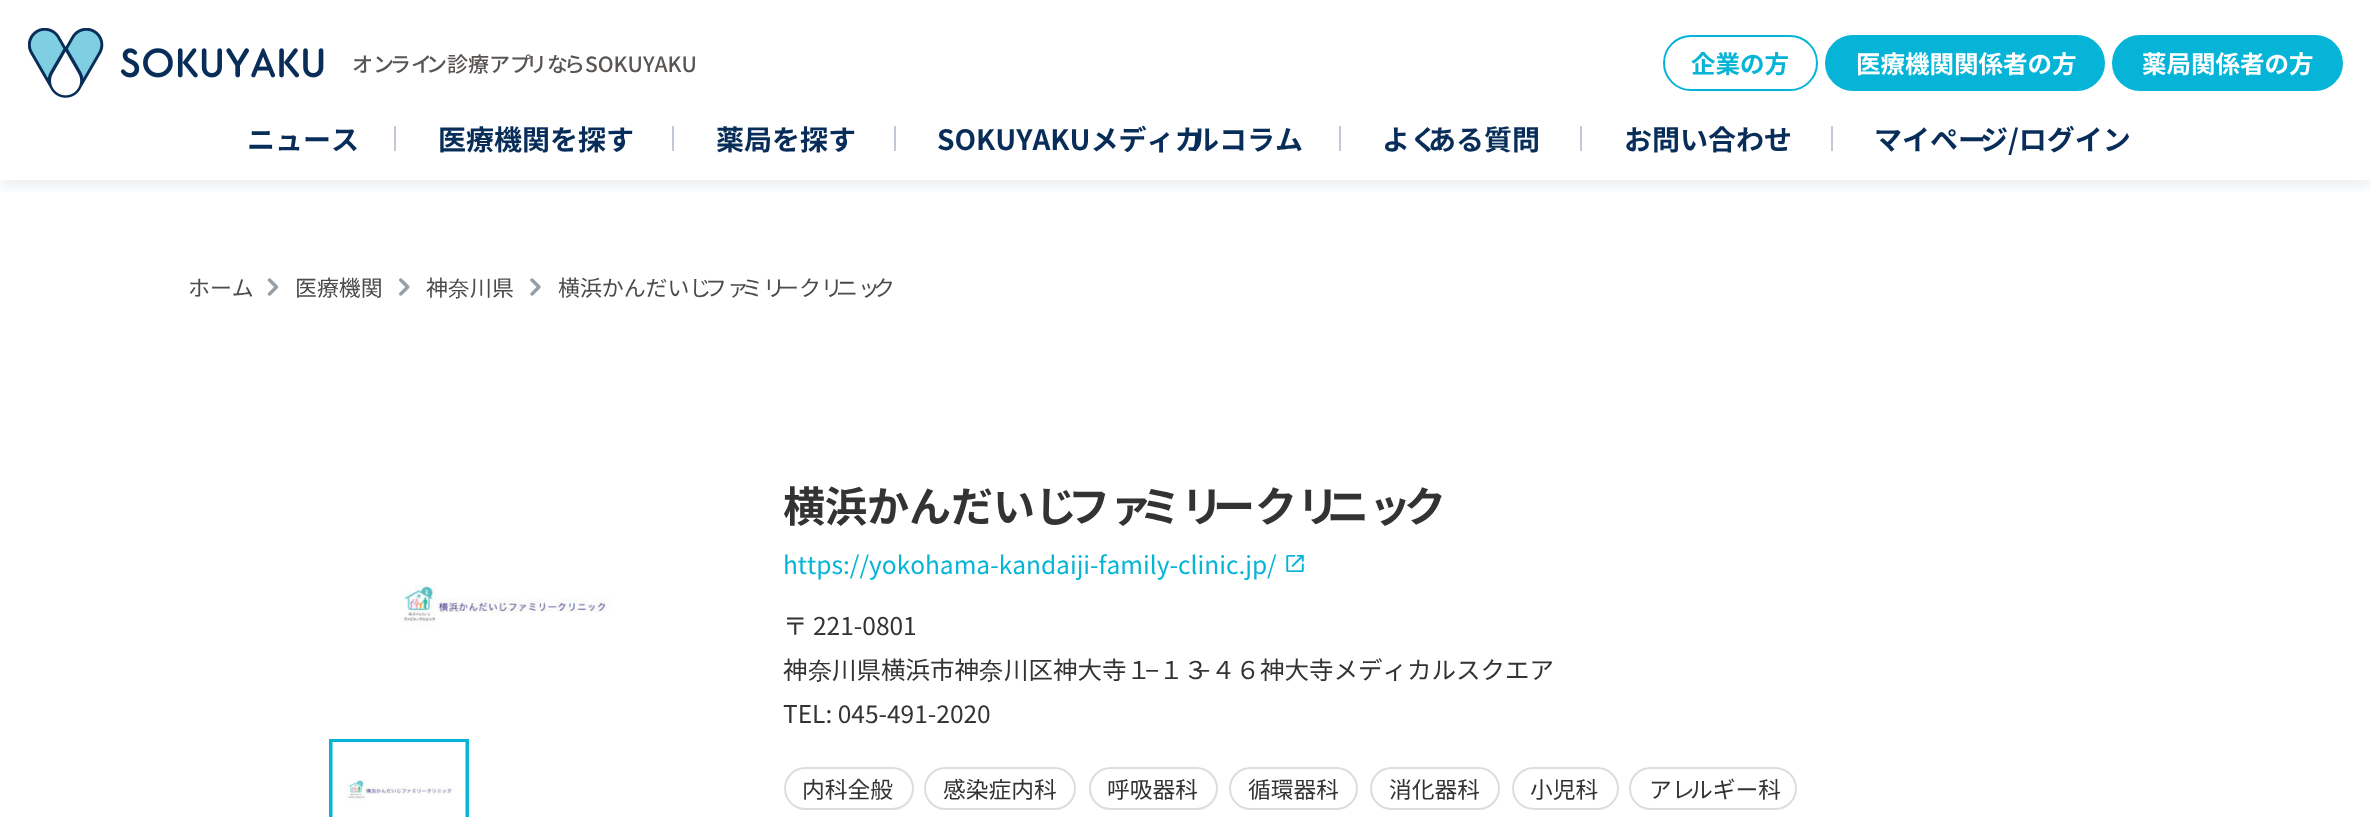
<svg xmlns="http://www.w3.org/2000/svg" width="2371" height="817">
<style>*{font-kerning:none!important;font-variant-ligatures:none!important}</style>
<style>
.a{font:100 21px 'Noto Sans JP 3';fill:#595553}
.b{font:100 24.5px Noto Sans JP;fill:#06b4d6}
.c{font:100 24.5px Noto Sans JP;fill:#fff}
.d{font:100 28px Noto Sans JP;fill:#082d59}
.e{font:100 21.9px 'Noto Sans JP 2';fill:#4b4b4b}
.f{font:500 21.9px WenQuanYi Zen Hei;fill:#4b4b4b}
.g{font:100 42px Noto Sans JP;fill:#333}
.h{font:100 24.5px 'Noto Sans JP 2';fill:#06b4d6}
.i{font:100 24.5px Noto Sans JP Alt;fill:#333}
.j{font:100 24.5px 'Noto Sans JP 2';fill:#333}
.k{font:500 24.5px WenQuanYi Zen Hei;fill:#333}
.l{font:24.5px Liberation Sans;fill:#333}
.m{font:100 22.75px 'Noto Sans JP 2';fill:#333}
</style>
<defs>
<clipPath id="clip1"><path d="M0 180h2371v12H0z"/></clipPath>
</defs>
<rect width="100%" height="100%" fill="#fff"/>
<g clip-path="url(#clip1)">
<path fill="#082d5914" filter="blur(7px)" d="M0 7h2371v180H0z"/>
</g>
<image href="1.png" x="28" y="28" width="296" height="70"/>
<rect fill="none" stroke="#06b4d7" stroke-width="2" x="1664" y="36" width="153" height="54" rx="27"/>
<rect fill="#06b4d7" stroke="#06b4d7" stroke-width="2" x="1826" y="36" width="278" height="54" rx="27"/>
<rect fill="#06b4d7" stroke="#06b4d7" stroke-width="2" x="2113" y="36" width="229" height="54" rx="27"/>
<path fill="#c0c9d4" d="M394 126h2v25H394z"/>
<path fill="#c0c9d4" d="M672 126h2v25H672z"/>
<path fill="#c0c9d4" d="M894 126h2v25H894z"/>
<path fill="#c0c9d4" d="M1339 126h2v25H1339z"/>
<path fill="#c0c9d4" d="M1580 126h2v25H1580z"/>
<path fill="#c0c9d4" d="M1831 126h2v25H1831z"/>
<image href="2.png" x="267" y="278" width="12" height="18"/>
<image href="3.png" x="399" y="278" width="11" height="18"/>
<image href="4.png" x="530" y="278" width="11" height="18"/>
<image href="5.png" x="401" y="584" width="210" height="43"/>
<path fill="none" stroke="#06b4d6" stroke-width="4" d="M331 741h136v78H331z"/>
<image href="6.png" x="332" y="742" width="134" height="75"/>
<image href="7.png" x="1286" y="555" width="18" height="17"/>
<rect fill="none" stroke="#ddd" stroke-width="2" x="785" y="768" width="128" height="41" rx="20.5"/>
<rect fill="none" stroke="#ddd" stroke-width="2" x="925" y="768" width="150" height="41" rx="20.5"/>
<rect fill="none" stroke="#ddd" stroke-width="2" x="1090" y="768" width="127" height="41" rx="20.5"/>
<rect fill="none" stroke="#ddd" stroke-width="2" x="1230" y="768" width="127" height="41" rx="20.5"/>
<rect fill="none" stroke="#ddd" stroke-width="2" x="1371" y="768" width="128" height="41" rx="20.5"/>
<rect fill="none" stroke="#ddd" stroke-width="2" x="1513" y="768" width="105" height="41" rx="20.5"/>
<rect fill="none" stroke="#ddd" stroke-width="2" x="1630" y="768" width="166" height="41" rx="20.5"/>
<text class="a" x="352" y="72">オン</text>
<text class="a" x="390" y="72">ライ</text>
<text class="a" x="426" y="72">ン診療アプ</text>
<text class="a" x="526" y="72">リな</text>
<text class="a" x="564" y="72">らSOKUYAKU</text>
<text class="b" x="1691" y="73">企業の方</text>
<text class="c" x="1856" y="73">医療機関関係者の方</text>
<text class="c" x="2142" y="73">薬局関係者の方</text>
<text class="d" x="247" y="150">ニュース</text>
<text class="d" x="438" y="150">医療機関を探す</text>
<text class="d" x="716" y="150">薬局を探す</text>
<text class="d" x="937" y="150">SOKUYAKUメディカ</text>
<text class="d" x="1191" y="150">ルコラム</text>
<text class="d" x="1382" y="150">よく</text>
<text class="d" x="1428" y="150">ある質問</text>
<text class="d" x="1624" y="150">お問い合わせ</text>
<text class="d" x="1874" y="150">マイペー</text>
<text class="d" x="1980" y="150">ジ/ログイン</text>
<text class="e" x="188" y="296">ホーム</text>
<text class="e" x="295" y="296">医療機関</text>
<text class="e" x="426" y="296">神</text>
<text class="f" x="448" y="296">奈</text>
<text class="e" x="470" y="296">川県</text>
<text class="e" x="558" y="296">横浜かんだいじ</text>
<text class="e" x="705" y="296">ファ</text>
<text class="e" x="741" y="296">ミリ</text>
<text class="e" x="777" y="296">ークリ</text>
<text class="e" x="836" y="296">ニッ</text>
<text class="e" x="873" y="296">ク</text>
<text class="g" x="783" y="522">横浜かんだいじ</text>
<text class="g" x="1068" y="522">ファ</text>
<text class="g" x="1139" y="522">ミリ</text>
<text class="g" x="1213" y="522">ークリ</text>
<text class="g" x="1327" y="522">ニッ</text>
<text class="g" x="1404" y="522">ク</text>
<text class="h" x="783" y="574">https://yokohama-kandaiji-family-clinic.jp/</text>
<text class="i" x="783" y="635">〒 221-0801</text>
<text class="j" x="783" y="679">神</text>
<text class="k" x="808" y="679">奈</text>
<text class="j" x="832" y="679">川県横浜市神</text>
<text class="k" x="979" y="679">奈</text>
<text class="j" x="1004" y="679">川区神大寺１</text>
<text class="l" x="1145" y="679">−</text>
<text class="i" x="1159" y="679">１３</text>
<text class="l" x="1196" y="679">−</text>
<text class="i" x="1211" y="679">４６神大寺メディカルスクエア</text>
<text class="j" x="783" y="723">TEL: 045-491-2020</text>
<text class="m" x="802" y="798">内科全般</text>
<text class="m" x="943" y="798">感染症内科</text>
<text class="m" x="1107" y="798">呼吸器科</text>
<text class="m" x="1248" y="798">循環器科</text>
<text class="m" x="1389" y="798">消化器科</text>
<text class="m" x="1530" y="798">小児科</text>
<text class="m" x="1649" y="798">アレ</text>
<text class="m" x="1690" y="798">ルギー科</text>
</svg>
